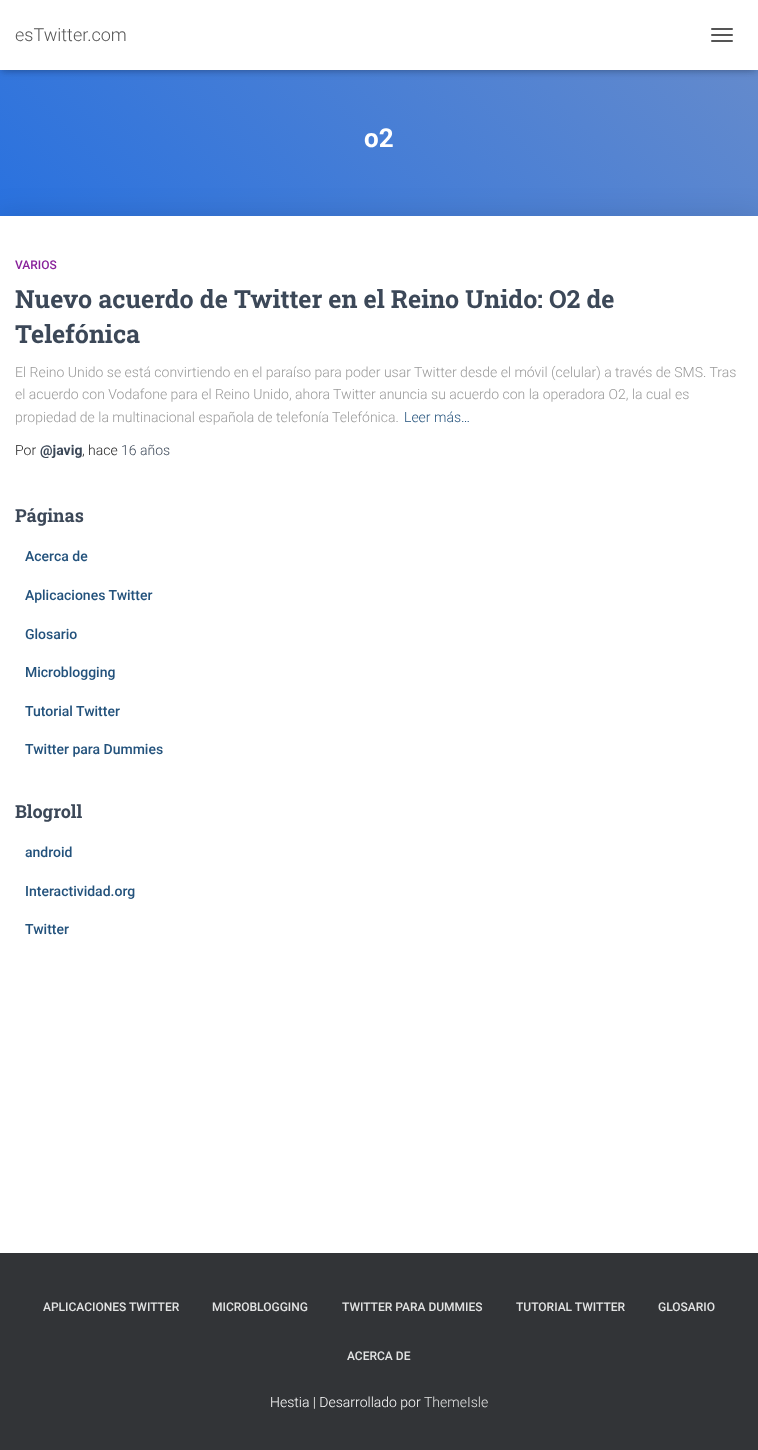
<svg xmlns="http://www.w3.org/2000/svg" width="758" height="1450">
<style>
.a{font:300 18px Roboto;fill:#555}
.b{font:bold 26px Roboto;fill:#fff}
.c{font:500 12px Roboto;fill:#89229b}
.d{font:bold 25px Roboto Slab;fill:#3c4858}
.e{font:300 14px Roboto;fill:#999}
.f{font:300 14px Roboto;fill:#23527c}
.g{font:300 14px Roboto;fill:#212121}
.h{font:bold 14px Roboto;fill:#3c4858}
.i{font:300 14px Roboto;fill:#3c4858}
.j{font:bold 18px Roboto Slab;fill:#3c4858}
.k{font:500 14px Roboto;fill:#23527c}
.l{font:500 12px Roboto;fill:#e2e3e3}
.m{font:300 14px Roboto;fill:#fff}
.n{font:300 14px Roboto;fill:#e2e3e3}
</style>
<defs>
<linearGradient id="g1" gradientUnits="userSpaceOnUse" x1="121" y1="397" x2="638" y2="-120"><stop offset="0" stop-color="#2670e0"/><stop offset="1" stop-color="#688ccb"/></linearGradient>
</defs>
<rect width="100%" height="100%" fill="#fff"/>
<path fill="url(#g1)" d="M0 70h758v146H0z"/>
<path fill="#0000001a" filter="blur(2.5px)" d="M2 6h754v66H2z"/>
<path fill="#0000001f" filter="blur(5px)" d="M0 1h758v70H0z"/>
<path fill="#0000006b" filter="blur(5px)" d="M6 7h746v58H6z"/>
<path fill="#fff" d="M0 0h758v70H0z"/>
<rect fill="#555" x="711" y="28" width="22" height="2" rx="1"/>
<rect fill="#555" x="711" y="34" width="22" height="2" rx="1"/>
<rect fill="#555" x="711" y="40" width="22" height="2" rx="1"/>
<path fill="#0000001f" filter="blur(15px)" d="M-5 217h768v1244H-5z"/>
<path fill="#fff" d="M0 216h758v1037H0z"/>
<path fill="#323437" d="M0 1253h758v197H0z"/>
<text class="a" x="15" y="41">esTwitter.com</text>
<text class="b" x="364" y="147">o2</text>
<text class="c" x="15" y="269">VARIOS</text>
<text class="d" x="15" y="308">Nuevo acuerdo de Twitter en el Reino Unido: O2 de</text>
<text class="d" x="15" y="343">Telefónica</text>
<text class="e" x="15" y="377">El Reino Unido se está convirtiendo en el paraíso para poder usar Twitter desde el móvil (celular) a través de SMS. Tras</text>
<text class="e" x="15" y="399">el acuerdo con Vodafone para el Reino Unido, ahora Twitter anuncia su acuerdo con la operadora O2, la cual es</text>
<text class="e" x="15" y="422">propiedad de la multinacional española de telefonía Telefónica.</text>
<text class="f" x="404" y="422">Leer más…</text>
<text class="g" x="15" y="455">Por</text>
<text class="h" x="40" y="455">@javig</text>
<text class="g" x="82" y="455">, hace</text>
<text class="i" x="121" y="455">16 años</text>
<text class="j" x="15" y="522">Páginas</text>
<text class="k" x="25" y="561">Acerca de</text>
<text class="k" x="25" y="600">Aplicaciones Twitter</text>
<text class="k" x="25" y="639">Glosario</text>
<text class="k" x="25" y="677">Microblogging</text>
<text class="k" x="25" y="716">Tutorial Twitter</text>
<text class="k" x="25" y="754">Twitter para Dummies</text>
<text class="j" x="15" y="818">Blogroll</text>
<text class="k" x="25" y="857">android</text>
<text class="k" x="25" y="896">Interactividad.org</text>
<text class="k" x="25" y="934">Twitter</text>
<text class="l" x="43" y="1311">APLICACIONES TWITTER</text>
<text class="l" x="212" y="1311">MICROBLOGGING</text>
<text class="l" x="342" y="1311">TWITTER PARA DUMMIES</text>
<text class="l" x="516" y="1311">TUTORIAL TWITTER</text>
<text class="l" x="658" y="1311">GLOSARIO</text>
<text class="l" x="347" y="1360">ACERCA DE</text>
<text class="m" x="270" y="1407">Hestia | Desarrollado por</text>
<text class="n" x="424" y="1407">ThemeIsle</text>
</svg>
